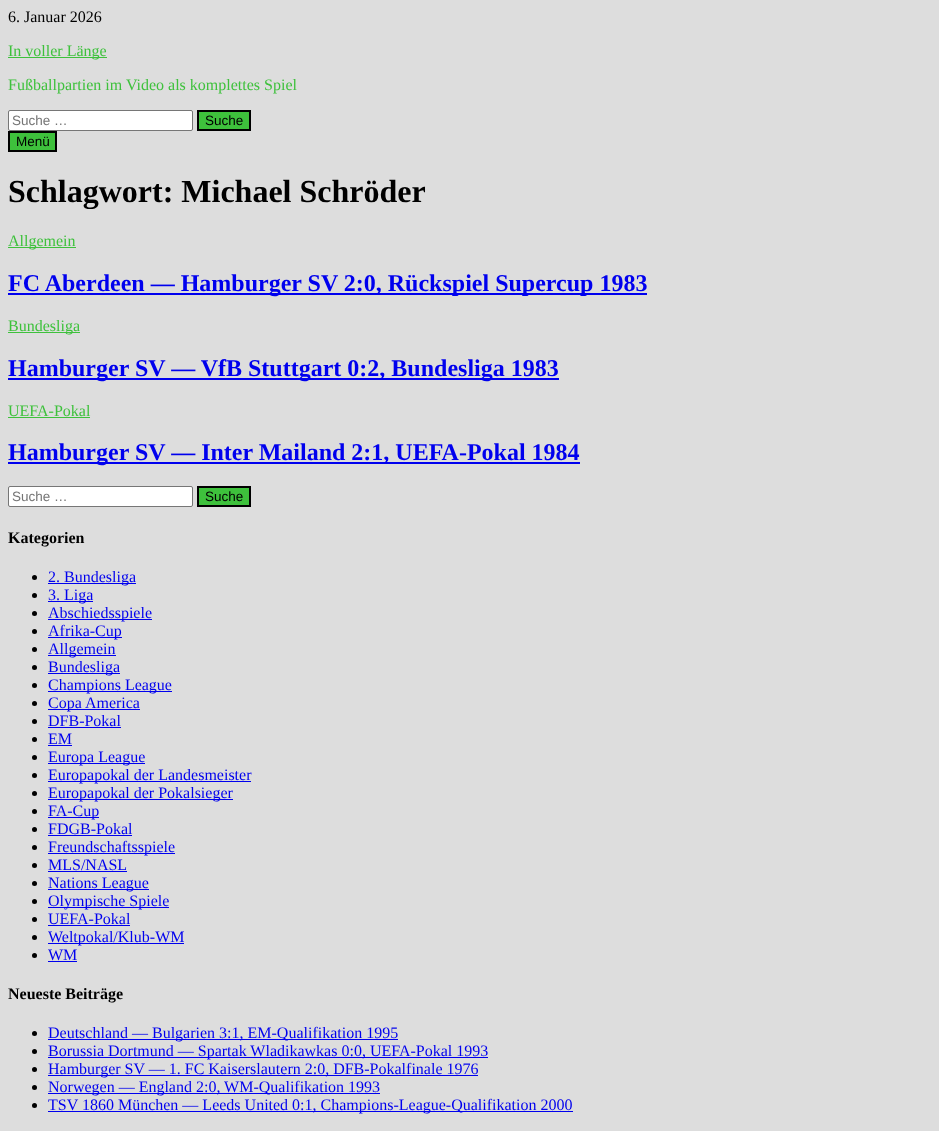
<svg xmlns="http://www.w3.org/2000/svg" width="939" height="1131">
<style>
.a{font:16px Liberation Serif;fill:#000}
.b{font:16px Liberation Serif;fill:#3ec13c}
.c{font:13.5px Liberation Sans;fill:#757575}
.d{font:13.5px Liberation Sans;fill:#000}
.e{font:bold 32px Liberation Serif;fill:#000}
.f{font:bold 24px Liberation Serif;fill:#00e}
.g{font:bold 16px Liberation Serif;fill:#000}
.h{font:16px Liberation Serif;fill:#00e}
</style>
<rect width="100%" height="100%" fill="#ddd"/>
<path fill="#3ec13c" d="M8 57h99v1H8z"/>
<rect fill="#fff" stroke="#767676" x="8.5" y="110.5" width="184" height="20" rx="1.5"/>
<path fill="#3ec13c" stroke="#000" stroke-width="2" d="M198 111h52v19H198z"/>
<path fill="#3ec13c" stroke="#000" stroke-width="2" d="M9 132h47v19H9z"/>
<path fill="#3ec13c" d="M8 247h68v1H8z"/>
<path fill="#00e" d="M8 293h639v2H8z"/>
<path fill="#3ec13c" d="M8 332h72v1H8z"/>
<path fill="#00e" d="M8 378h551v2H8z"/>
<path fill="#3ec13c" d="M8 417h82v1H8z"/>
<path fill="#00e" d="M8 462h572v2H8z"/>
<rect fill="#fff" stroke="#767676" x="8.5" y="486.5" width="184" height="20" rx="1.5"/>
<path fill="#3ec13c" stroke="#000" stroke-width="2" d="M198 487h52v19H198z"/>
<circle fill="#000" cx="34.5" cy="577.5" r="2.5"/>
<path fill="#00e" d="M48 583h88v1H48z"/>
<circle fill="#000" cx="34.5" cy="595.5" r="2.5"/>
<path fill="#00e" d="M48 601h45v1H48z"/>
<circle fill="#000" cx="34.5" cy="613.5" r="2.5"/>
<path fill="#00e" d="M48 619h104v1H48z"/>
<circle fill="#000" cx="34.5" cy="631.5" r="2.5"/>
<path fill="#00e" d="M48 637h74v1H48z"/>
<circle fill="#000" cx="34.5" cy="649.5" r="2.5"/>
<path fill="#00e" d="M48 655h68v1H48z"/>
<circle fill="#000" cx="34.5" cy="667.5" r="2.5"/>
<path fill="#00e" d="M48 673h72v1H48z"/>
<circle fill="#000" cx="34.5" cy="685.5" r="2.5"/>
<path fill="#00e" d="M48 691h124v1H48z"/>
<circle fill="#000" cx="34.5" cy="703.5" r="2.5"/>
<path fill="#00e" d="M48 709h92v1H48z"/>
<circle fill="#000" cx="34.5" cy="721.5" r="2.5"/>
<path fill="#00e" d="M48 727h73v1H48z"/>
<circle fill="#000" cx="34.5" cy="739.5" r="2.5"/>
<path fill="#00e" d="M48 745h24v1H48z"/>
<circle fill="#000" cx="34.5" cy="757.5" r="2.5"/>
<path fill="#00e" d="M48 763h97v1H48z"/>
<circle fill="#000" cx="34.5" cy="775.5" r="2.5"/>
<path fill="#00e" d="M48 781h203v1H48z"/>
<circle fill="#000" cx="34.5" cy="793.5" r="2.5"/>
<path fill="#00e" d="M48 799h185v1H48z"/>
<circle fill="#000" cx="34.5" cy="811.5" r="2.5"/>
<path fill="#00e" d="M48 817h51v1H48z"/>
<circle fill="#000" cx="34.5" cy="829.5" r="2.5"/>
<path fill="#00e" d="M48 835h84v1H48z"/>
<circle fill="#000" cx="34.5" cy="847.5" r="2.5"/>
<path fill="#00e" d="M48 853h127v1H48z"/>
<circle fill="#000" cx="34.5" cy="865.5" r="2.5"/>
<path fill="#00e" d="M48 871h79v1H48z"/>
<circle fill="#000" cx="34.5" cy="883.5" r="2.5"/>
<path fill="#00e" d="M48 889h101v1H48z"/>
<circle fill="#000" cx="34.5" cy="901.5" r="2.5"/>
<path fill="#00e" d="M48 907h121v1H48z"/>
<circle fill="#000" cx="34.5" cy="919.5" r="2.5"/>
<path fill="#00e" d="M48 925h82v1H48z"/>
<circle fill="#000" cx="34.5" cy="937.5" r="2.5"/>
<path fill="#00e" d="M48 943h136v1H48z"/>
<circle fill="#000" cx="34.5" cy="955.5" r="2.5"/>
<path fill="#00e" d="M48 961h29v1H48z"/>
<circle fill="#000" cx="34.5" cy="1033.5" r="2.5"/>
<path fill="#00e" d="M48 1039h350v1H48z"/>
<circle fill="#000" cx="34.5" cy="1051.5" r="2.5"/>
<path fill="#00e" d="M48 1057h440v1H48z"/>
<circle fill="#000" cx="34.5" cy="1069.5" r="2.5"/>
<path fill="#00e" d="M48 1075h430v1H48z"/>
<circle fill="#000" cx="34.5" cy="1087.5" r="2.5"/>
<path fill="#00e" d="M48 1093h332v1H48z"/>
<circle fill="#000" cx="34.5" cy="1105.5" r="2.5"/>
<path fill="#00e" d="M48 1111h525v1H48z"/>
<text class="a" x="8" y="22">6. Januar 2026</text>
<text class="b" x="8" y="56">In voller Länge</text>
<text class="b" x="8" y="90">Fußballpartien im Video als komplettes Spiel</text>
<text class="c" x="12" y="125">Suche …</text>
<text class="d" x="205" y="125">Suche</text>
<text class="d" x="16" y="146">Menü</text>
<text class="e" x="8" y="202">Schlagwort: Michael Schröder</text>
<text class="b" x="8" y="246">Allgemein</text>
<text class="f" x="8" y="291">FC Aberdeen — Hamburger SV 2:0, Rückspiel Supercup 1983</text>
<text class="b" x="8" y="331">Bundesliga</text>
<text class="f" x="8" y="376">Hamburger SV — VfB Stuttgart 0:2, Bundesliga 1983</text>
<text class="b" x="8" y="416">UEFA-Pokal</text>
<text class="f" x="8" y="460">Hamburger SV — Inter Mailand 2:1, UEFA-Pokal 1984</text>
<text class="c" x="12" y="501">Suche …</text>
<text class="d" x="205" y="501">Suche</text>
<text class="g" x="8" y="543">Kategorien</text>
<text class="h" x="48" y="582">2. Bundesliga</text>
<text class="h" x="48" y="600">3. Liga</text>
<text class="h" x="48" y="618">Abschiedsspiele</text>
<text class="h" x="48" y="636">Afrika-Cup</text>
<text class="h" x="48" y="654">Allgemein</text>
<text class="h" x="48" y="672">Bundesliga</text>
<text class="h" x="48" y="690">Champions League</text>
<text class="h" x="48" y="708">Copa America</text>
<text class="h" x="48" y="726">DFB-Pokal</text>
<text class="h" x="48" y="744">EM</text>
<text class="h" x="48" y="762">Europa League</text>
<text class="h" x="48" y="780">Europapokal der Landesmeister</text>
<text class="h" x="48" y="798">Europapokal der Pokalsieger</text>
<text class="h" x="48" y="816">FA-Cup</text>
<text class="h" x="48" y="834">FDGB-Pokal</text>
<text class="h" x="48" y="852">Freundschaftsspiele</text>
<text class="h" x="48" y="870">MLS/NASL</text>
<text class="h" x="48" y="888">Nations League</text>
<text class="h" x="48" y="906">Olympische Spiele</text>
<text class="h" x="48" y="924">UEFA-Pokal</text>
<text class="h" x="48" y="942">Weltpokal/Klub-WM</text>
<text class="h" x="48" y="960">WM</text>
<text class="g" x="8" y="999">Neueste Beiträge</text>
<text class="h" x="48" y="1038">Deutschland — Bulgarien 3:1, EM-Qualifikation 1995</text>
<text class="h" x="48" y="1056">Borussia Dortmund — Spartak Wladikawkas 0:0, UEFA-Pokal 1993</text>
<text class="h" x="48" y="1074">Hamburger SV — 1. FC Kaiserslautern 2:0, DFB-Pokalfinale 1976</text>
<text class="h" x="48" y="1092">Norwegen — England 2:0, WM-Qualifikation 1993</text>
<text class="h" x="48" y="1110">TSV 1860 München — Leeds United 0:1, Champions-League-Qualifikation 2000</text>
</svg>
